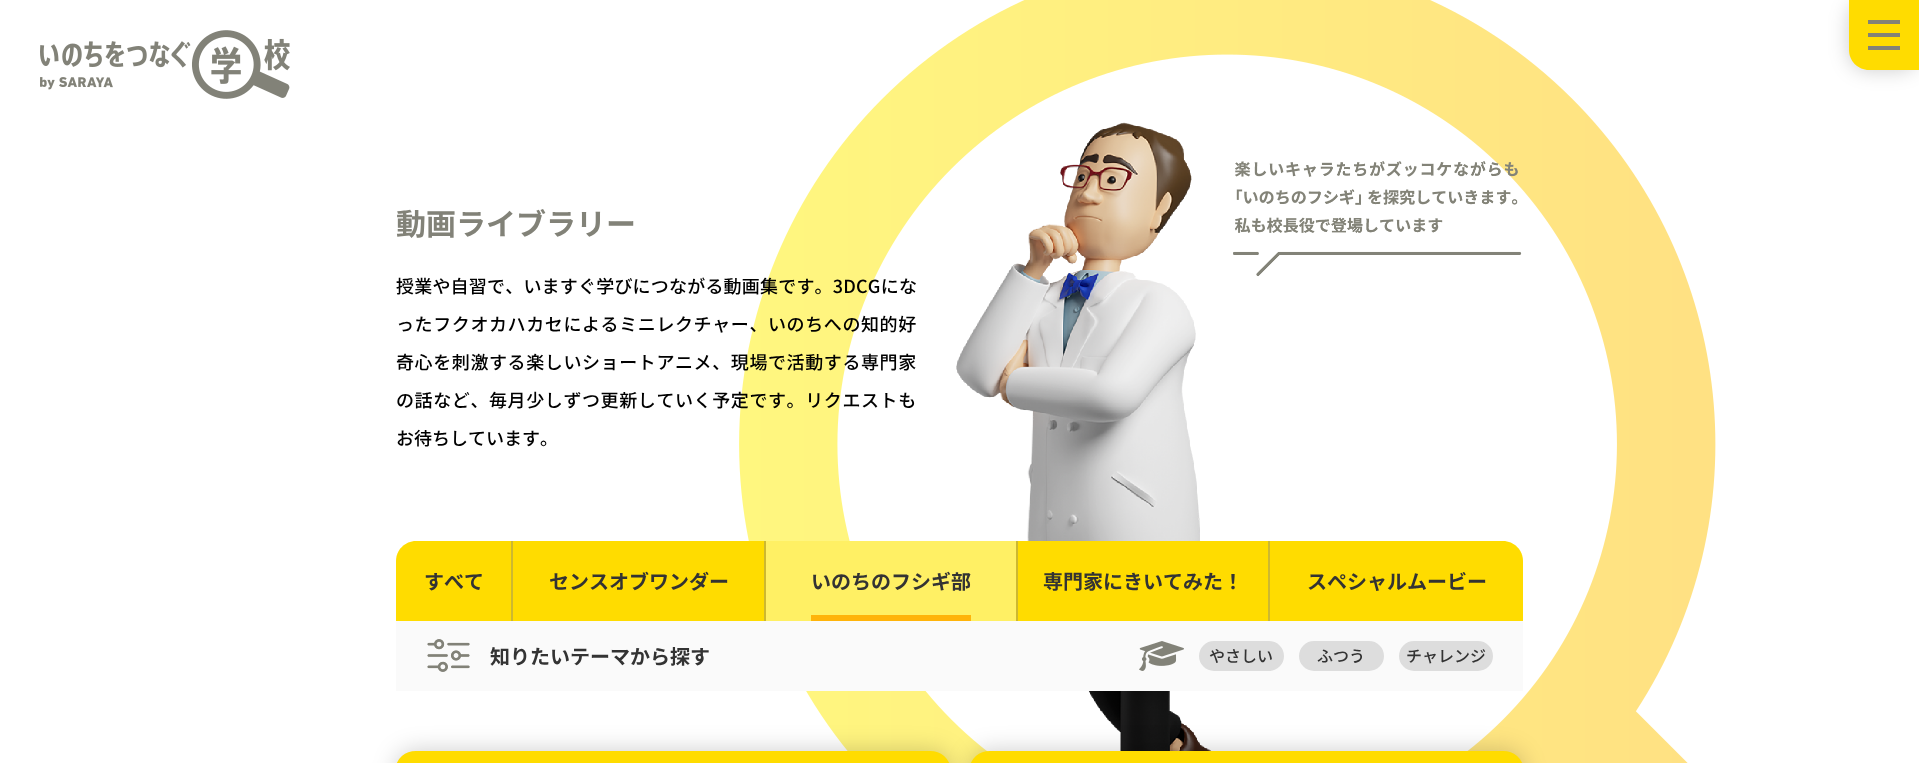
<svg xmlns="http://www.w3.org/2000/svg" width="1919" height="763">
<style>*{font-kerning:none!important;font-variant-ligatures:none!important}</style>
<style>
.a{font:bold 30px Noto Sans JP;fill:#828278}
.b{font:500 18px Noto Sans JP;letter-spacing:0.2px;fill:#000}
.c{font:500 18px Noto Sans JP;letter-spacing:0.6px;fill:#000}
.d{font:500 18px Noto Sans JP;fill:#000}
.e{font:bold 20px Noto Sans JP;fill:#333}
.f{font:500 16px Noto Sans JP;fill:#333}
</style>
<rect width="100%" height="100%" fill="#fff"/>
<image href="1.png" x="40" y="30" width="250" height="69"/>
<rect fill="#00000033" filter="blur(10px)" x="1849" width="70" height="70" rx="20"/>
<path fill="#ffdc00" d="M1849 0h70v70h-50c-11 0-20-9-20-20z"/>
<path fill="#828278" d="M1868 20h32v4H1868z"/>
<path fill="#828278" d="M1868 33h32v4H1868z"/>
<path fill="#828278" d="M1868 46h32v4H1868z"/>
<image href="2.png" x="739" y="0" width="977" height="763"/>
<image href="3.png" x="956" y="122" width="566" height="629"/>
<path fill="#ffdc00" d="M416 541h97v80h-117v-60c0-11 9-20 20-20z"/>
<path fill="#cdb830" d="M511 541h2v80H511z"/>
<path fill="#ffdc00" d="M513 541h251v80H513z"/>
<path fill="#cdb830" d="M764 541h2v80H764z"/>
<path fill="#cdb830" d="M1016 541h2v80H1016z"/>
<path fill="#fff064" d="M766 541h250v80H766z"/>
<path fill="#ffb40a" d="M811 615h160v6H811z"/>
<path fill="#ffdc00" d="M1018 541h250v80H1018z"/>
<path fill="#cdb830" d="M1268 541h2v80H1268z"/>
<path fill="#ffdc00" d="M1270 541h233c11 0 20 9 20 20v60h-253z"/>
<path fill="#fafafa" d="M396 621h1127v70H396z"/>
<image href="4.png" x="427" y="638" width="43" height="34"/>
<image href="5.png" x="1139" y="641" width="45" height="30"/>
<rect fill="#ddd" stroke="#ddd" stroke-width="2" x="1200" y="642" width="83" height="28" rx="14"/>
<rect fill="#ddd" stroke="#ddd" stroke-width="2" x="1300" y="642" width="83" height="28" rx="14"/>
<rect fill="#ddd" stroke="#ddd" stroke-width="2" x="1400" y="642" width="92" height="28" rx="14"/>
<rect fill="#00000033" filter="blur(12.5px)" x="396" y="751" width="554" height="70" rx="20"/>
<rect fill="#ffdc00" stroke="#ffdc00" stroke-width="2" x="397" y="752" width="552" height="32" rx="19"/>
<rect fill="#00000033" filter="blur(12.5px)" x="970" y="751" width="553" height="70" rx="20"/>
<rect fill="#ffdc00" stroke="#ffdc00" stroke-width="2" x="971" y="752" width="551" height="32" rx="19"/>
<text class="a" x="396" y="235">動画ライブラリー</text>
<text class="b" x="396" y="293">授業や自習で、いますぐ学びにつながる動画集です。3DCGにな</text>
<text class="c" x="396" y="331">ったフクオカハカセによるミニレクチャー、いのちへの知的好</text>
<text class="c" x="396" y="369">奇心を刺激する楽しいショートアニメ、現場で活動する専門家</text>
<text class="c" x="396" y="407">の話など、毎月少しずつ更新していく予定です。リクエストも</text>
<text class="d" x="396" y="445">お待ちしています。</text>
<text class="e" x="424" y="589">すべて</text>
<text class="e" x="549" y="589">センスオブワンダー</text>
<text class="e" x="811" y="589">いのちのフシギ部</text>
<text class="e" x="1043" y="589">専門家にきいてみた！</text>
<text class="e" x="1307" y="589">スペシャルムービー</text>
<text class="e" x="490" y="664">知りたいテーマから探す</text>
<text class="f" x="1209" y="662">やさしい</text>
<text class="f" x="1317" y="662">ふつう</text>
<text class="f" x="1406" y="662">チャレンジ</text>
</svg>
